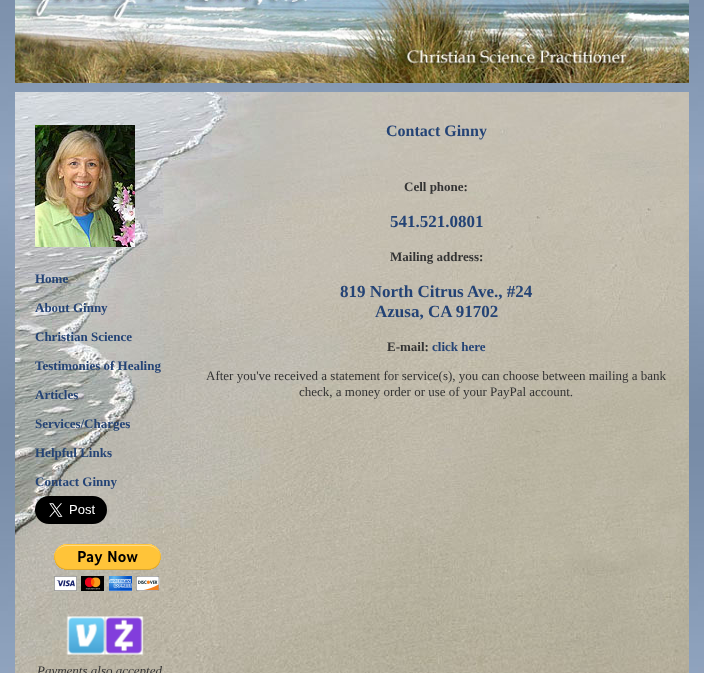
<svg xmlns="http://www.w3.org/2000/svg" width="704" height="673">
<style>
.a{font:bold 13px Liberation Serif;fill:#244375}
.b{font:italic 13px Liberation Serif;fill:#333}
.c{font:bold 16px Liberation Serif;fill:#244375}
.d{font:bold 13px Liberation Serif;fill:#333}
.e{font:bold 17px Liberation Serif;fill:#244375}
.f{font:13px Liberation Serif;fill:#333}
</style>
<rect width="100%" height="100%" fill="#fff"/>
<image href="1.png" x="0" y="0" width="704" height="673"/>
<image href="2.png" x="15" y="0" width="674" height="83"/>
<image href="3.png" x="15" y="92" width="674" height="581"/>
<image href="4.png" x="35" y="125" width="100" height="122"/>
<image href="5.png" x="35" y="496" width="72" height="28"/>
<image href="6.png" x="54" y="544" width="107" height="47"/>
<image href="7.png" x="66" y="616" width="78" height="39"/>
<text class="a" x="35" y="283">Home</text>
<text class="a" x="35" y="312">About Ginny</text>
<text class="a" x="35" y="341">Christian Science</text>
<text class="a" x="35" y="370">Testimonies of Healing</text>
<text class="a" x="35" y="399">Articles</text>
<text class="a" x="35" y="428">Services/Charges</text>
<text class="a" x="35" y="457">Helpful Links</text>
<text class="a" x="35" y="486">Contact Ginny</text>
<text class="b" x="37" y="675">Payments also accepted</text>
<text class="c" x="386" y="136">Contact Ginny</text>
<text class="d" x="404" y="191">Cell phone:</text>
<text class="e" x="390" y="227">541.521.0801</text>
<text class="d" x="390" y="261">Mailing address:</text>
<text class="e" x="340" y="297">819 North Citrus Ave., #24</text>
<text class="e" x="375" y="317">Azusa, CA 91702</text>
<text class="d" x="387" y="351">E-mail:</text>
<text class="a" x="432" y="351">click here</text>
<text class="f" x="206" y="380">After you've received a statement for service(s), you can choose between mailing a bank</text>
<text class="f" x="299" y="396">check, a money order or use of your PayPal account.</text>
</svg>
